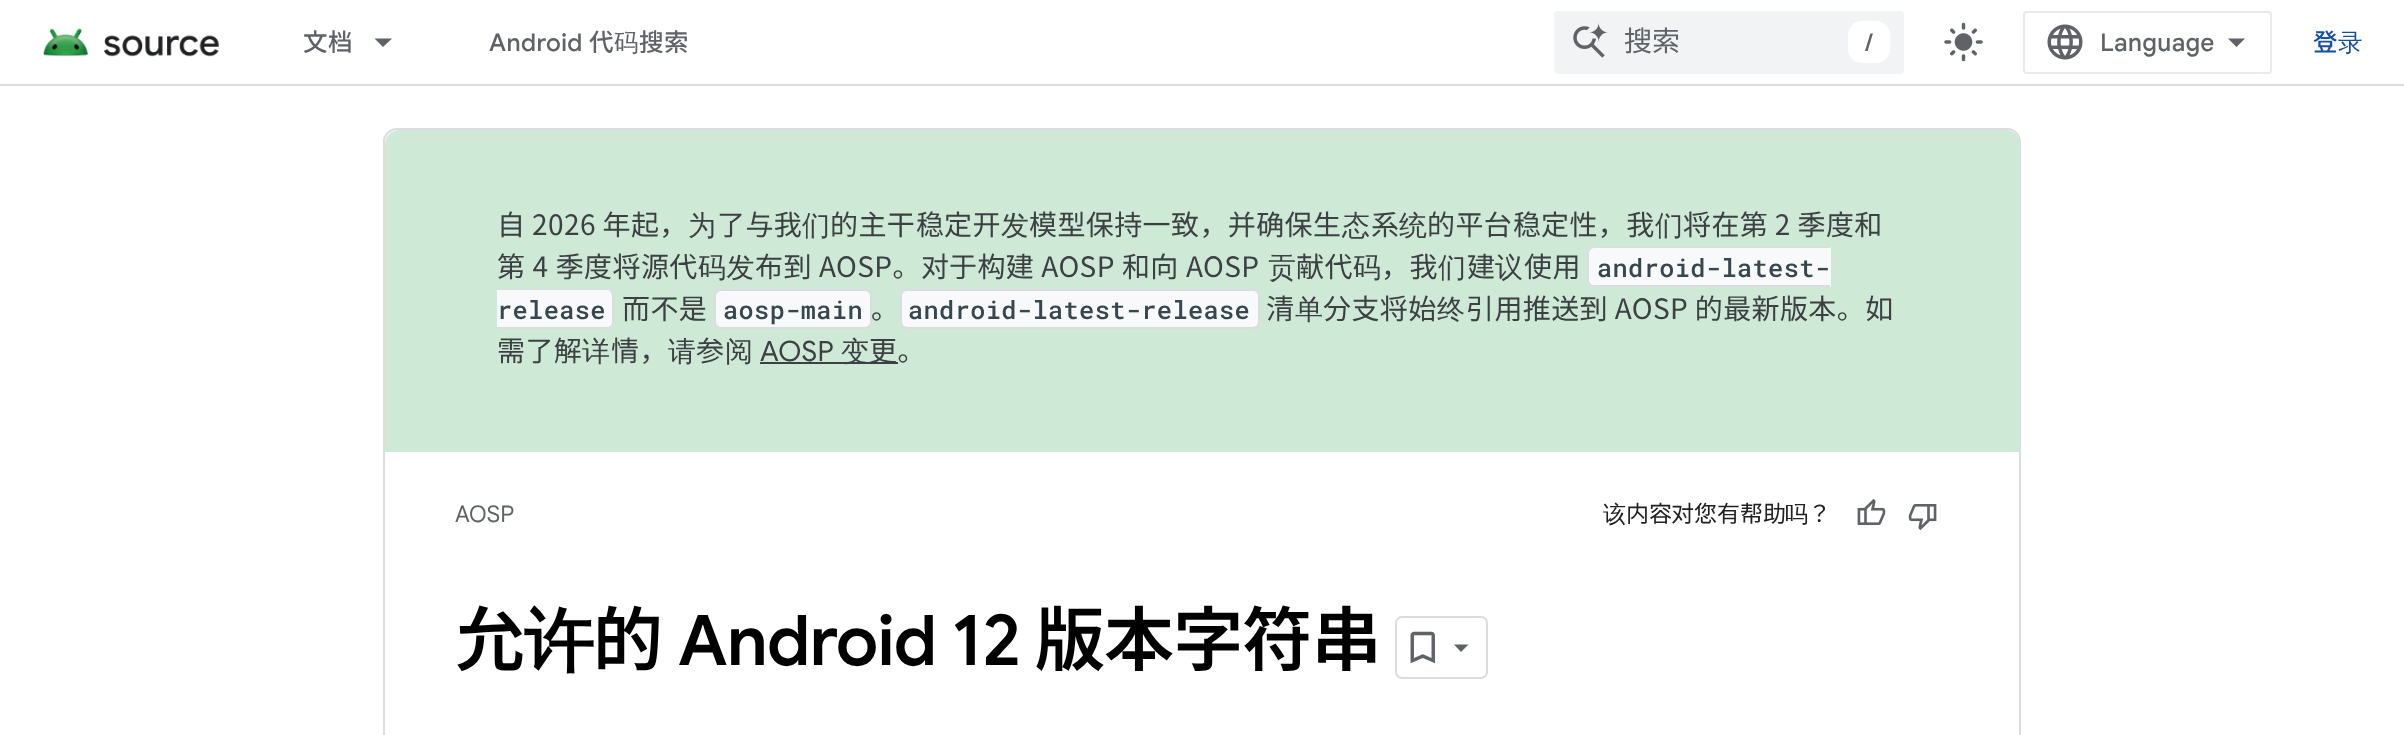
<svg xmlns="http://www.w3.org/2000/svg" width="2404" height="735">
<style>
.a{font:500 24.5px Noto Sans JP;letter-spacing:0.4px;fill:#5f6368}
.b{font:500 24.5px Google Sans;letter-spacing:0.4px;fill:#5f6368}
.c{font:500 24.5px WenQuanYi Zen Hei;letter-spacing:0.4px;fill:#5f6368}
.d{font:28px Noto Sans JP;fill:#5f6368}
.e{font:500 24.5px Google Sans;fill:#5f6368}
.f{font:500 24.5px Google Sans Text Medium;fill:#5f6368}
.g{font:500 24.5px Noto Sans JP;letter-spacing:0.4px;fill:#174ea6}
.h{font:500 24.5px WenQuanYi Zen Hei;letter-spacing:0.4px;fill:#174ea6}
.i{font:28px Noto Sans JP;letter-spacing:0.4px;fill:#3c4043}
.j{font:500 28px WenQuanYi Zen Hei;letter-spacing:0.4px;fill:#3c4043}
.k{font:28px Noto Sans KR;letter-spacing:0.4px;fill:#3c4043}
.l{font:500 25.25px Roboto Mono;letter-spacing:0.4px;fill:#37474f}
.m{font:28px Google Sans;letter-spacing:0.4px;fill:#3c4043}
.n{font:23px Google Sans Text;fill:#5f6368}
.o{font:500 23px WenQuanYi Zen Hei;fill:#202124}
.p{font:23px Noto Sans JP;fill:#202124}
.q{font:23px Noto Sans KR;fill:#202124}
.r{font:600 70px Noto Sans JP;letter-spacing:-0.9px;fill:#000}
.s{font:bold 70px WenQuanYi Zen Hei;letter-spacing:-0.9px;fill:#000}
.t{font:600 70px Google Sans;letter-spacing:-0.9px;fill:#000}
</style>
<rect width="100%" height="100%" fill="#fff"/>
<path fill="#dadce0" d="M0 84h2404v2H0z"/>
<image href="1.png" x="43" y="28" width="176" height="29"/>
<path fill="#5f6368" d="M374.5 38.5h17.5l-9 8.5z"/>
<rect fill="#f1f3f4" x="1554" y="11" width="350" height="63" rx="4"/>
<image href="2.png" x="1573" y="23" width="35" height="35"/>
<rect fill="#fff" x="1848" y="21" width="42" height="42" rx="14"/>
<image href="3.png" x="1944" y="22" width="39" height="40"/>
<rect fill="none" stroke="#e8eaed" stroke-width="2" x="2024" y="12" width="247" height="61" rx="3"/>
<image href="4.png" x="2047" y="24" width="36" height="36"/>
<path fill="#5f6368" d="M2236.5 47l-8.5-8.5h17z"/>
<rect fill="none" stroke="#dadce0" stroke-width="2" x="384" y="129" width="1636" height="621" rx="13"/>
<path fill="#ceead6" d="M399 130h1607c7.5 0 14 6.5 14 14v308h-1635v-308c0-7.5 6.5-14 14-14z"/>
<path fill="#f8f9fa" d="M1594 247h237v40h-237c-4 0-7-3-7-7v-26c0-4 3-7 7-7z"/>
<path fill="#dadce0" fill-rule="evenodd" d="M1594 247h236v40h-236c-4 0-7-3-7-7v-26c0-4 3-7 7-7zm0 1h236v37h-236c-3 0-5-2-5-5v-26c0-3 2-6 5-6z"/>
<path fill="#f8f9fa" d="M497 289h110c4 0 7 3 7 7v26c0 4-3 7-7 7h-110z"/>
<path fill="#dadce0" fill-rule="evenodd" d="M497 289h110c4 0 7 3 7 7v26c0 4-3 7-7 7h-110zm0 1h110c3 0 5 3 5 6v26c0 3-2 5-5 5h-110z"/>
<rect fill="#f8f9fa" stroke="#dadce0" stroke-width="2" x="715" y="290" width="156" height="38" rx="6"/>
<rect fill="#f8f9fa" stroke="#dadce0" stroke-width="2" x="901" y="290" width="358" height="38" rx="6"/>
<path fill="#3c4043" d="M760 362h138v2H760z"/>
<image href="5.png" x="1857" y="499" width="29" height="26"/>
<image href="6.png" x="1908" y="504" width="29" height="26"/>
<rect fill="none" stroke="#dadce0" stroke-width="2" x="1396" y="617" width="91" height="61" rx="6"/>
<image href="7.png" x="1410" y="631" width="25" height="33"/>
<path fill="#5f6368" d="M1454 644.5h14.5l-7.5 7.5z"/>
<text class="a" x="303" y="51">文档</text>
<text class="b" x="489" y="51">Android</text>
<text class="a" x="589" y="51">代</text>
<text class="c" x="614" y="51">码</text>
<text class="a" x="639" y="51">搜索</text>
<text class="d" x="1624" y="51">搜索</text>
<text class="e" x="1865" y="51">/</text>
<text class="f" x="2100" y="51">Language</text>
<text class="g" x="2313" y="51">登</text>
<text class="h" x="2338" y="51">录</text>
<text class="i" x="497" y="235">自 2026 年起，</text>
<text class="j" x="688" y="235">为</text>
<text class="i" x="717" y="235">了与我</text>
<text class="j" x="802" y="235">们</text>
<text class="i" x="830" y="235">的主干</text>
<text class="k" x="916" y="235">稳</text>
<text class="i" x="944" y="235">定开</text>
<text class="j" x="1001" y="235">发</text>
<text class="i" x="1029" y="235">模型保持一致，并确保生</text>
<text class="j" x="1342" y="235">态</text>
<text class="i" x="1371" y="235">系</text>
<text class="j" x="1399" y="235">统</text>
<text class="i" x="1427" y="235">的平台</text>
<text class="k" x="1513" y="235">稳</text>
<text class="i" x="1541" y="235">定性，我</text>
<text class="j" x="1655" y="235">们</text>
<text class="i" x="1683" y="235">将在第 2 季度和</text>
<text class="i" x="497" y="277" word-spacing="0.5">第 4 季度将源代</text>
<text class="j" x="698" y="277">码发</text>
<text class="i" x="755" y="277" word-spacing="0.5">布到 AOSP。</text>
<text class="k" x="921" y="277">对</text>
<text class="i" x="949" y="277" word-spacing="0.5">于构建 AOSP 和向 AOSP</text>
<text class="j" x="1268" y="277">贡</text>
<text class="i" x="1296" y="277">献代</text>
<text class="j" x="1353" y="277">码</text>
<text class="i" x="1381" y="277">，我</text>
<text class="j" x="1438" y="277">们</text>
<text class="i" x="1467" y="277">建</text>
<text class="j" x="1495" y="277">议</text>
<text class="i" x="1524" y="277">使用</text>
<text class="l" x="1597" y="277">android-latest-</text>
<text class="l" x="497" y="319">release</text>
<text class="i" x="622" y="319">而不是</text>
<text class="l" x="723" y="319">aosp-main</text>
<text class="i" x="871" y="319">。</text>
<text class="l" x="908" y="319">android-latest-release</text>
<text class="i" x="1266" y="319">清</text>
<text class="j" x="1295" y="319">单</text>
<text class="i" x="1323" y="319">分支将始</text>
<text class="j" x="1437" y="319">终</text>
<text class="i" x="1466" y="319">引用推送到 AOSP 的最新版本。如</text>
<text class="i" x="497" y="361">需了解</text>
<text class="j" x="582" y="361">详</text>
<text class="i" x="611" y="361">情，</text>
<text class="j" x="668" y="361">请</text>
<text class="i" x="696" y="361">参</text>
<text class="j" x="725" y="361">阅</text>
<text class="m" x="760" y="361">AOSP</text>
<text class="j" x="841" y="361">变</text>
<text class="i" x="869" y="361">更。</text>
<text class="n" x="455" y="522">AOSP</text>
<text class="o" x="1603" y="522">该</text>
<text class="p" x="1626" y="522">内容</text>
<text class="q" x="1671" y="522">对</text>
<text class="p" x="1694" y="522">您有帮助</text>
<text class="o" x="1785" y="522">吗</text>
<text class="p" x="1808" y="522">？</text>
<text class="r" x="455" y="665">允</text>
<text class="s" x="524" y="665">许</text>
<text class="r" x="593" y="665">的</text>
<text class="t" x="678" y="665">Android 12</text>
<text class="r" x="1035" y="665">版本字符串</text>
</svg>
